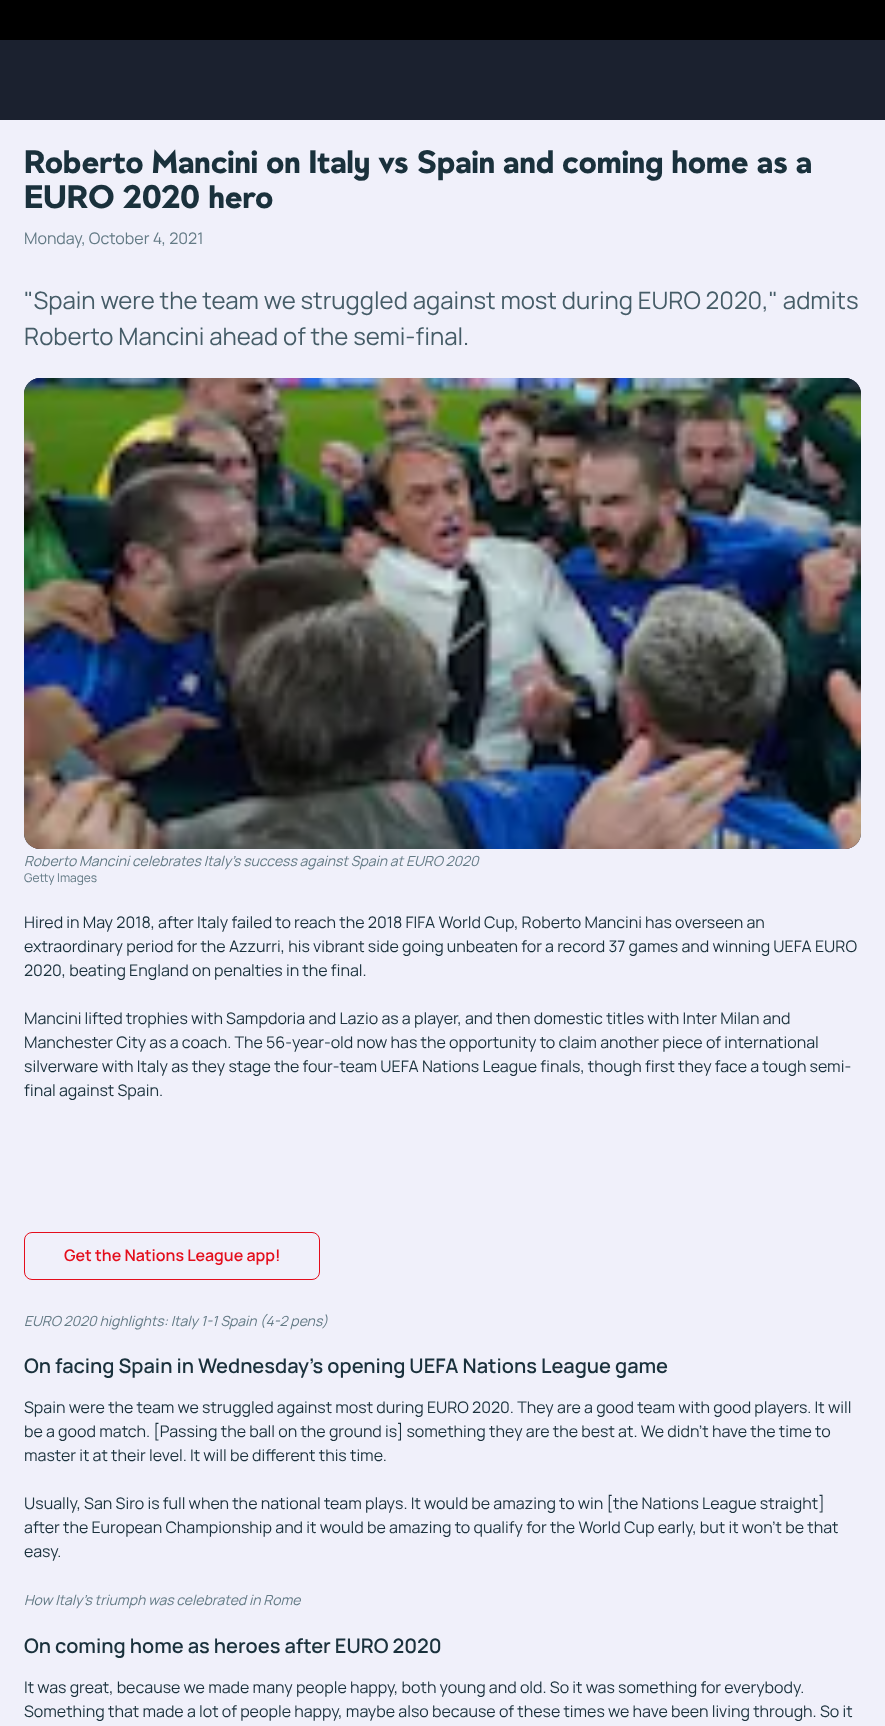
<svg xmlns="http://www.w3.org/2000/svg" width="885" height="1726">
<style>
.a{font:bold 32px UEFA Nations;fill:#1a313c}
.b{font:16px Manrope;fill:#637a85}
.c{font:24px Manrope;fill:#455c67}
.d{font:italic 14px Manrope;fill:#637a85}
.e{font:12px Manrope;fill:#637a85}
.f{font:16px Manrope;fill:#1a313c}
.g{font:600 16px Manrope;fill:#e40e1c}
.h{font:600 20px Manrope;fill:#1a313c}
</style>
<rect width="100%" height="100%" fill="#f0f0fa"/>
<path fill="#000" d="M0 0h885v40H0z"/>
<path fill="#1b212f" d="M0 40h885v80H0z"/>
<image href="1.png" x="24" y="378" width="837" height="471"/>
<image href="2.png" x="24" y="378" width="837" height="471"/>
<rect fill="none" stroke="#e40e1c" x="24.5" y="1232.5" width="295" height="47" rx="7.5"/>
<text class="a" x="24" y="173">Roberto Mancini on Italy vs Spain and coming home as a</text>
<text class="a" x="24" y="208">EURO 2020 hero</text>
<text class="b" x="24" y="244">Monday, October 4, 2021</text>
<text class="c" x="24" y="309">"Spain were the team we struggled against most during EURO 2020," admits</text>
<text class="c" x="24" y="345">Roberto Mancini ahead of the semi-final.</text>
<text class="d" x="24" y="866">Roberto Mancini celebrates Italy's success against Spain at EURO 2020</text>
<text class="e" x="24" y="882">Getty Images</text>
<text class="f" x="24" y="928">Hired in May 2018, after Italy failed to reach the 2018 FIFA World Cup, Roberto Mancini has overseen an</text>
<text class="f" x="24" y="952">extraordinary period for the Azzurri, his vibrant side going unbeaten for a record 37 games and winning UEFA EURO</text>
<text class="f" x="24" y="976">2020, beating England on penalties in the final.</text>
<text class="f" x="24" y="1024">Mancini lifted trophies with Sampdoria and Lazio as a player, and then domestic titles with Inter Milan and</text>
<text class="f" x="24" y="1048">Manchester City as a coach. The 56-year-old now has the opportunity to claim another piece of international</text>
<text class="f" x="24" y="1072">silverware with Italy as they stage the four-team UEFA Nations League finals, though first they face a tough semi-</text>
<text class="f" x="24" y="1096">final against Spain.</text>
<text class="g" x="64" y="1261">Get the Nations League app!</text>
<text class="d" x="24" y="1326">EURO 2020 highlights: Italy 1-1 Spain (4-2 pens)</text>
<text class="h" x="24" y="1373">On facing Spain in Wednesday's opening UEFA Nations League game</text>
<text class="f" x="24" y="1413">Spain were the team we struggled against most during EURO 2020. They are a good team with good players. It will</text>
<text class="f" x="24" y="1437">be a good match. [Passing the ball on the ground is] something they are the best at. We didn't have the time to</text>
<text class="f" x="24" y="1461">master it at their level. It will be different this time.</text>
<text class="f" x="24" y="1509">Usually, San Siro is full when the national team plays. It would be amazing to win [the Nations League straight]</text>
<text class="f" x="24" y="1533">after the European Championship and it would be amazing to qualify for the World Cup early, but it won't be that</text>
<text class="f" x="24" y="1557">easy.</text>
<text class="d" x="24" y="1605">How Italy's triumph was celebrated in Rome</text>
<text class="h" x="24" y="1653">On coming home as heroes after EURO 2020</text>
<text class="f" x="24" y="1693">It was great, because we made many people happy, both young and old. So it was something for everybody.</text>
<text class="f" x="24" y="1717">Something that made a lot of people happy, maybe also because of these times we have been living through. So it</text>
</svg>
